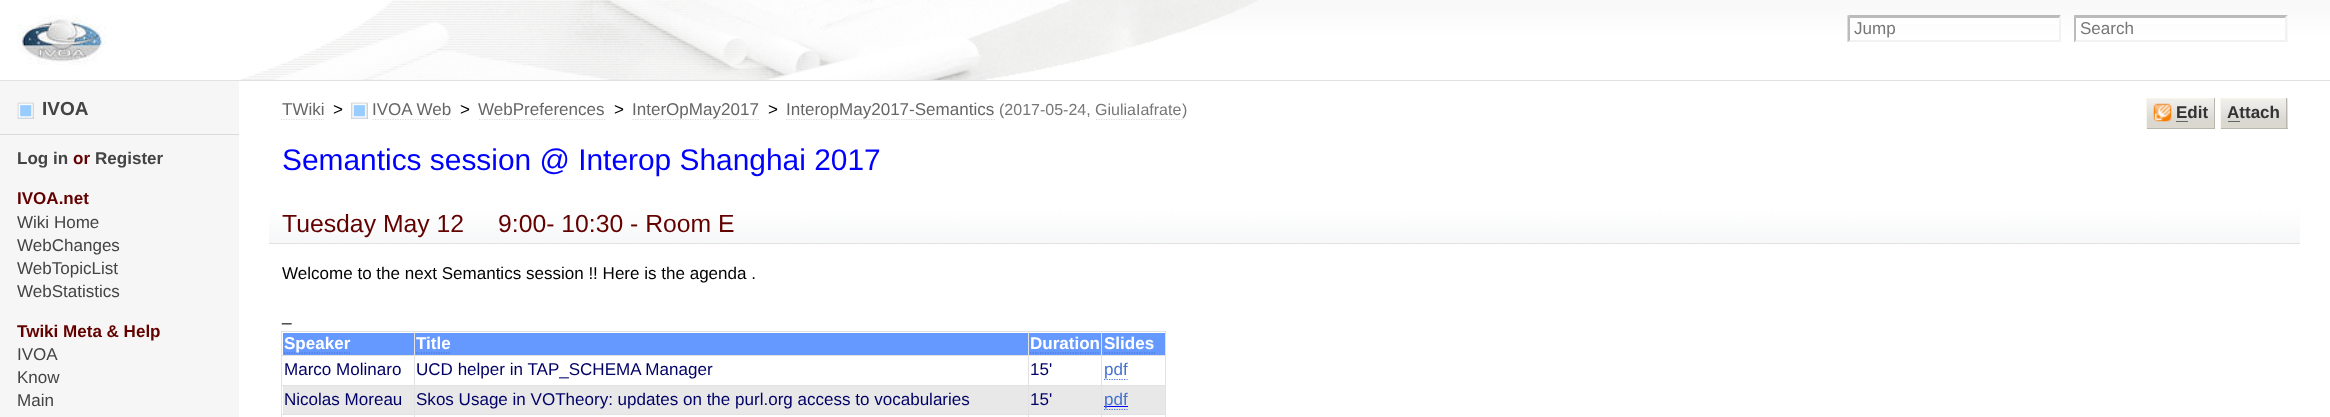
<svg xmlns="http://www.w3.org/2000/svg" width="2330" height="417">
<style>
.a{font:17.05px Liberation Sans;fill:#777}
.b{font:bold 19px Liberation Sans;fill:#444}
.c{font:bold 17.05px Liberation Sans;fill:#444}
.d{font:bold 17.05px Liberation Sans;fill:#630000}
.e{font:17.05px Liberation Sans;fill:#444}
.f{font:17.05px Liberation Sans;fill:#666}
.g{font:17.05px Liberation Sans;fill:#000}
.h{font:16px Liberation Sans;fill:#777}
.i{font:bold 17.05px Liberation Sans;fill:#333}
.j{font:29.9px Liberation Sans;fill:#00f}
.k{font:24.75px Liberation Sans;fill:#630000}
.l{font:bold 17.05px Liberation Sans;fill:#fff}
.m{font:17.05px Liberation Sans;fill:#006}
.n{font:17.05px Liberation Sans;fill:#4571d0}
</style>
<rect width="100%" height="100%" fill="#f6f6f6"/>
<image href="1.png" x="986" y="0" width="1344" height="80"/>
<path fill="#e2e2e2" d="M0 80h2330v1H0z"/>
<image href="2.png" x="0" y="0" width="1258" height="80"/>
<image href="3.png" x="17" y="15" width="89" height="50"/>
<path fill="#fff" d="M1848 15h213v9H1848z"/>
<path fill="#bbb" d="M1848 15h213l-2 3h-209z"/>
<path fill="#f2f2f2" d="M2061 15v27.5l-2-2.5v-22.5z"/>
<path fill="#f2f2f2" d="M2061 42h-213l2-2h209z"/>
<path fill="#bbb" d="M1847.5 42.5v-27.5l2.5 2.5v22.5z"/>
<path fill="#fff" d="M2074 15h214v9H2074z"/>
<path fill="#bbb" d="M2074 15h214l-3 3h-209z"/>
<path fill="#f2f2f2" d="M2287.5 15v27.5l-2.5-2.5v-22.5z"/>
<path fill="#f2f2f2" d="M2288 42h-214l2-2h209z"/>
<path fill="#bbb" d="M2074 42.5v-27.5l2 2.5v22.5z"/>
<path fill="#fff" d="M239 81h2091v336H239z"/>
<path fill="#dadada" d="M0 134h239v1H0z"/>
<path fill="#9cf" d="M18 103h16v16H18z"/>
<image href="4.png" x="17" y="102" width="17" height="17"/>
<path fill="none" stroke="#ddd" stroke-width="1.2" stroke-dasharray="1.25 1.25" d="M281 119.5h43"/>
<path fill="#9cf" d="M351 103h17v16H351z"/>
<image href="5.png" x="351" y="102" width="17" height="17"/>
<path fill="none" stroke="#ddd" stroke-width="1.2" stroke-dasharray="1.25 1.25" d="M372.5 119.5h78.5"/>
<path fill="none" stroke="#ddd" stroke-width="1.2" stroke-dasharray="1.25 1.25" d="M479 119.5h126"/>
<path fill="none" stroke="#ddd" stroke-width="1.2" stroke-dasharray="1.25 1.25" d="M786 119.5h209"/>
<path fill="none" stroke="#ddd" stroke-width="1.2" stroke-dasharray="1.25 1.25" d="M632.5 119.5h126.5"/>
<path fill="#dbd9cf" d="M2147 121h67v7H2147z"/>
<image href="6.png" x="2147" y="99" width="67" height="22"/>
<path fill="#f8f6ec" d="M2146 98h69v1H2146z"/>
<path fill="#b8b6ad" d="M2214 98h1v31H2214z"/>
<path fill="#b8b6ad" d="M2146 128h69v1H2146z"/>
<path fill="#f8f6ec" d="M2146 98h1v31H2146z"/>
<image href="7.png" x="2153" y="103" width="19" height="19"/>
<path fill="#666" d="M2176 121h12v1H2176z"/>
<path fill="#dbd9cf" d="M2221 99h67v29H2221z"/>
<image href="8.png" x="2221" y="99" width="67" height="22"/>
<path fill="#f8f6ec" d="M2220 98h68v1H2220z"/>
<path fill="#b8b6ad" d="M2286 98h1v31H2286z"/>
<path fill="#b8b6ad" d="M2220 128h68v1H2220z"/>
<path fill="#f8f6ec" d="M2220 98h1v31H2220z"/>
<path fill="#666" d="M2228 121h12v1H2228z"/>
<image href="9.png" x="269" y="206" width="2031" height="37"/>
<path fill="#e2e2e2" d="M269 243h2031v1H269z"/>
<path fill="#e2e2e2" d="M281 331h885v1H281z"/>
<path fill="#e2e2e2" d="M1165 331h1v86H1165z"/>
<path fill="#e2e2e2" d="M281 331h1v86H281z"/>
<path fill="#69f" d="M283 333h131v22H283z"/>
<path fill="none" stroke="#4571d0" stroke-width="1.2" stroke-dasharray="1.25 1.25" d="M284 353h66"/>
<path fill="#69f" d="M415 333h613v22H415z"/>
<path fill="#e2e2e2" d="M1101 355h65v1H1101z"/>
<path fill="#e2e2e2" d="M1101 385h65v1H1101z"/>
<path fill="#e8e8e8" d="M1029 386h136v28H1029z"/>
<path fill="#e2e2e2" d="M1101 414h65v1H1101z"/>
<path fill="#e2e2e2" d="M1101 414h1v3H1101z"/>
<path fill="#e2e2e2" d="M1028 414h75v1H1028z"/>
<path fill="#e2e2e2" d="M1101 385h1v30H1101z"/>
<path fill="#e2e2e2" d="M1028 385h75v1H1028z"/>
<path fill="#e2e2e2" d="M1101 355h1v31H1101z"/>
<path fill="#e2e2e2" d="M1028 355h75v1H1028z"/>
<path fill="#e2e2e2" d="M1028 414h1v3H1028z"/>
<path fill="#e2e2e2" d="M414 414h615v1H414z"/>
<path fill="#e2e2e2" d="M1028 385h1v30H1028z"/>
<path fill="#e2e2e2" d="M414 385h615v1H414z"/>
<path fill="#e2e2e2" d="M1028 355h1v31H1028z"/>
<path fill="#e2e2e2" d="M414 355h615v1H414z"/>
<path fill="#e2e2e2" d="M414 414h1v3H414z"/>
<path fill="#e2e2e2" d="M281 414h134v1H281z"/>
<path fill="#e2e2e2" d="M414 385h1v30H414z"/>
<path fill="#e2e2e2" d="M281 385h134v1H281z"/>
<path fill="#e2e2e2" d="M414 355h1v31H414z"/>
<path fill="#e2e2e2" d="M281 355h134v1H281z"/>
<path fill="#e2e2e2" d="M414 331h1v25H414z"/>
<path fill="none" stroke="#4571d0" stroke-width="1.2" stroke-dasharray="1.25 1.25" d="M416 353h34"/>
<path fill="#69f" d="M1029 333h136v22H1029z"/>
<path fill="#e2e2e2" d="M1028 331h1v25H1028z"/>
<path fill="none" stroke="#4571d0" stroke-width="1.2" stroke-dasharray="1.25 1.25" d="M1030 353h70"/>
<path fill="#e2e2e2" d="M1101 331h1v25H1101z"/>
<path fill="none" stroke="#4571d0" stroke-width="1.2" stroke-dasharray="1.25 1.25" d="M1104 353h51"/>
<path fill="none" stroke="#4571d0" stroke-width="1.2" stroke-dasharray="1.25 1.25" d="M1104 379.5h23.5"/>
<path fill="#e8e8e8" d="M283 386h131v28H283z"/>
<path fill="#e8e8e8" d="M415 386h613v28H415z"/>
<path fill="none" stroke="#4571d0" stroke-width="1.2" stroke-dasharray="1.25 1.25" d="M1104 409.5h23.5"/>
<path fill="#00f" d="M1104 406h24v1H1104z"/>
<text class="a" x="1854" y="34">Jump</text>
<text class="a" x="2080" y="34">Search</text>
<text class="b" x="42" y="115">IVOA</text>
<text class="c" x="17" y="164">Log in</text>
<text class="d" x="73" y="164">or</text>
<text class="c" x="95" y="164">Register</text>
<text class="d" x="17" y="204">IVOA.net</text>
<text class="e" x="17" y="228">Wiki Home</text>
<text class="e" x="17" y="251">WebChanges</text>
<text class="e" x="17" y="274">WebTopicList</text>
<text class="e" x="17" y="297">WebStatistics</text>
<text class="d" x="17" y="337">Twiki Meta &amp; Help</text>
<text class="e" x="17" y="360">IVOA</text>
<text class="e" x="17" y="383">Know</text>
<text class="e" x="17" y="406">Main</text>
<text class="f" x="282" y="115">TWiki</text>
<text class="f" x="372" y="115">IVOA Web</text>
<text class="f" x="478" y="115">WebPreferences</text>
<text class="f" x="786" y="115">InteropMay2017-Semantics</text>
<text class="g" x="333" y="115">&gt;</text>
<text class="g" x="460" y="115">&gt;</text>
<text class="g" x="614" y="115">&gt;</text>
<text class="f" x="632" y="115">InterOpMay2017</text>
<text class="g" x="768" y="115">&gt;</text>
<text class="h" x="999" y="115">(2017-05-24, GiuliaIafrate</text>
<path fill="none" stroke="#ddd" stroke-width="1.2" stroke-dasharray="1.25 1.25" d="M1096 119.5h86.5"/>
<text class="h" x="1182" y="115">)</text>
<text class="i" x="2176" y="118">Edit</text>
<text class="i" x="2227" y="118">Attach</text>
<text class="j" x="282" y="170">Semantics session @ Interop Shanghai 2017</text>
<text class="k" x="282" y="232">Tuesday May 12</text>
<text class="k" x="498" y="232">9:00- 10:30 - Room E</text>
<text class="g" x="282" y="279">Welcome to the next Semantics session !! Here is the agenda .</text>
<text class="g" x="282" y="321">_</text>
<text class="l" x="284" y="349">Speaker</text>
<text class="l" x="416" y="349">Title</text>
<text class="l" x="1030" y="349">Duration</text>
<text class="l" x="1104" y="349">Slides</text>
<text class="m" x="284" y="375">Marco Molinaro</text>
<text class="m" x="416" y="375">UCD helper in TAP_SCHEMA Manager</text>
<text class="m" x="1030" y="375">15'</text>
<text class="n" x="1104" y="375">pdf</text>
<text class="m" x="284" y="405">Nicolas Moreau</text>
<text class="m" x="416" y="405">Skos Usage in VOTheory: updates on the purl.org access to vocabularies</text>
<text class="m" x="1030" y="405">15'</text>
<text class="n" x="1104" y="405">pdf</text>
</svg>
